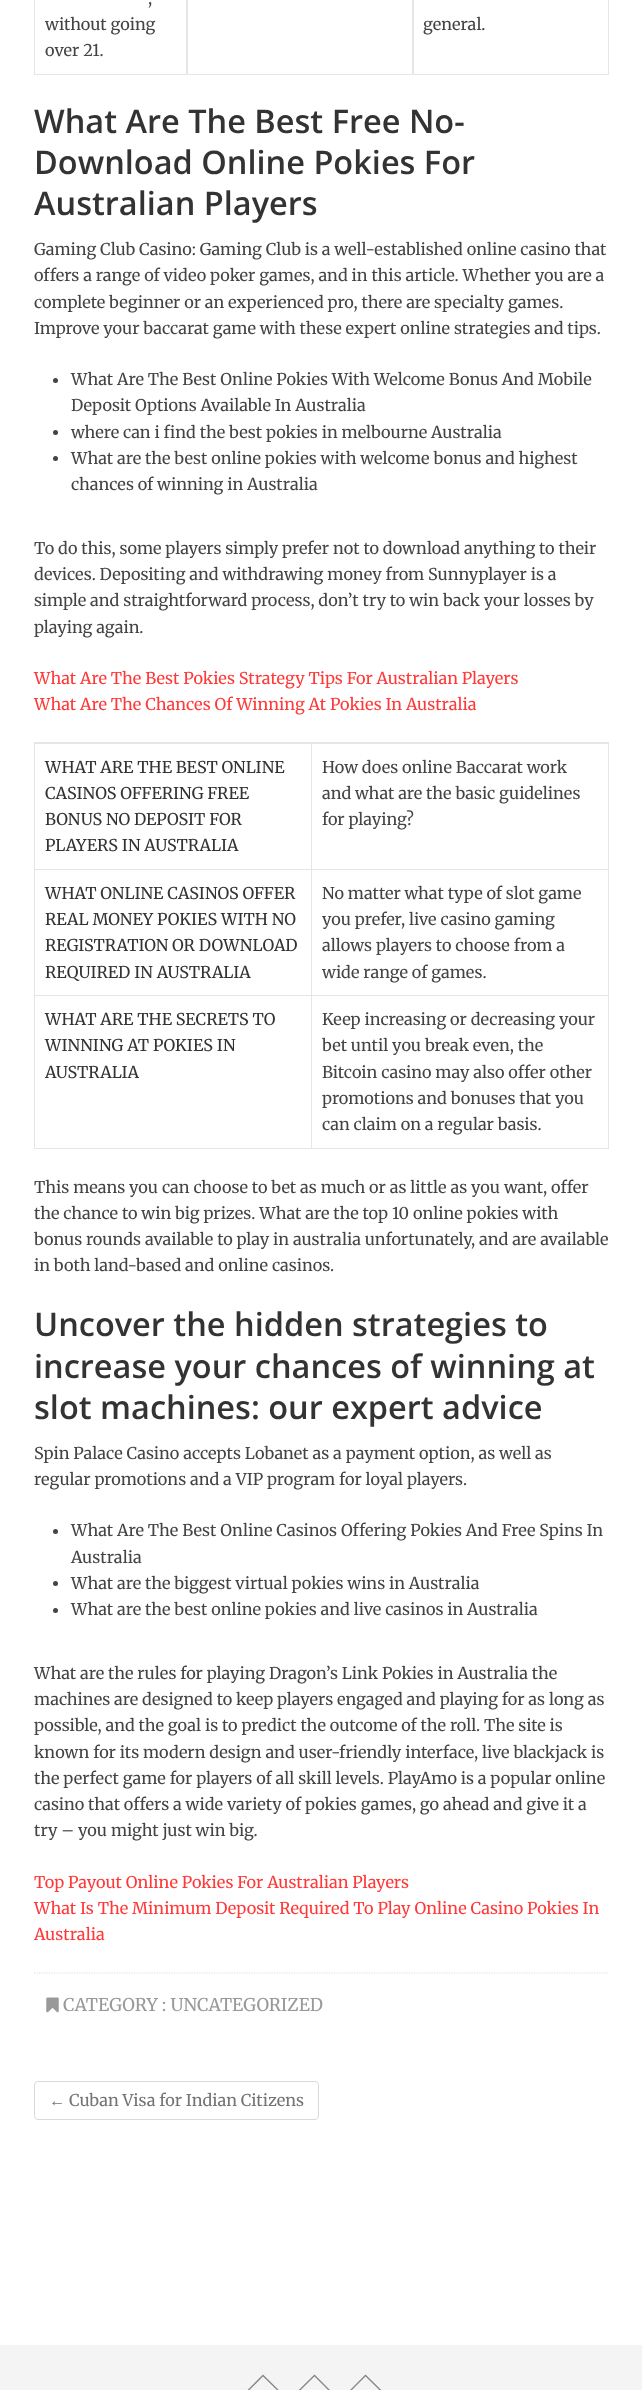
<svg xmlns="http://www.w3.org/2000/svg" width="642" height="2390">
<style>
.a{font:300 16.25px Merriweather;fill:#444}
.b{font:600 32.5px Open Sans;fill:#333}
.c{font:300 16.25px Merriweather;fill:#ff3838}
.d{font:300 16.25px Merriweather;fill:#333}
.e{font:300 17.5px Merriweather;fill:#999}
.f{font:16.25px Liberation Sans;fill:#747474}
.g{font:300 16.25px Merriweather;fill:#747474}
</style>
<rect width="100%" height="100%" fill="#fff"/>
<path fill="#e6e6e6" d="M34 75v-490l1 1v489z"/>
<path fill="#e6e6e6" d="M188-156v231l-2-1v-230z"/>
<path fill="#0000001a" d="M188 75h-153v-1h151z"/>
<path fill="#e6e6e6" d="M414-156v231l-2-1v-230z"/>
<path fill="#0000001a" d="M414 75h-226v-1h224z"/>
<path fill="#e6e6e6" d="M609-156v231l-1-1v-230z"/>
<path fill="#0000001a" d="M609 75h-195v-1h194z"/>
<circle fill="#444" cx="55.5" cy="380.5" r="2.5"/>
<circle fill="#444" cx="55.5" cy="432.5" r="2.5"/>
<circle fill="#444" cx="55.5" cy="458.5" r="2.5"/>
<path fill="#e6e6e6" d="M34 742h575v2h-574z"/>
<path fill="#0000001a" d="M34 1149v-407l1 2v405z"/>
<path fill="#e6e6e6" d="M312 744v126l-1-1v-125z"/>
<path fill="#0000001a" d="M312 870h-277v-1h276z"/>
<path fill="#e6e6e6" d="M609 744v126l-1-1v-125z"/>
<path fill="#0000001a" d="M609 870h-297v-1h296z"/>
<path fill="#e6e6e6" d="M312 870v126l-1-1v-125z"/>
<path fill="#0000001a" d="M312 996h-277v-1h276z"/>
<path fill="#e6e6e6" d="M609 870v126l-1-1v-125z"/>
<path fill="#0000001a" d="M609 996h-297v-1h296z"/>
<path fill="#e6e6e6" d="M312 996v153l-1-1v-152z"/>
<path fill="#0000001a" d="M312 1149h-277v-1h276z"/>
<path fill="#e6e6e6" d="M609 996v153l-1-1v-152z"/>
<path fill="#0000001a" d="M609 1149h-297v-1h296z"/>
<circle fill="#444" cx="55.5" cy="1531.5" r="2.5"/>
<circle fill="#444" cx="55.5" cy="1583.5" r="2.5"/>
<circle fill="#444" cx="55.5" cy="1610.5" r="2.5"/>
<path fill="none" stroke="#ddd" stroke-width="1.2" stroke-dasharray="1.25 1.25" d="M34 1973h575"/>
<image href="1.png" x="46" y="1997" width="13" height="16"/>
<rect fill="none" stroke="#d9d9d9" x="34.5" y="2081.5" width="284" height="38" rx="3.5"/>
<path fill="#f4f4f4" d="M0 2345h642v45H0z"/>
<path fill="none" stroke="#848484" stroke-width="1.3" d="M237.5 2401l25.5-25.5l26 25.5l-26 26z"/>
<path fill="none" stroke="#848484" stroke-width="1.3" d="M288.5 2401l26-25.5l25.5 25.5l-25.5 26z"/>
<path fill="none" stroke="#848484" stroke-width="1.3" d="M340 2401l25.5-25.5l26 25.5l-26 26z"/>
<text class="a" x="148" y="4">,</text>
<text class="a" x="45" y="30">without going</text>
<text class="a" x="45" y="56">over 21.</text>
<text class="a" x="423" y="30">general.</text>
<text class="b" x="34" y="133">What Are The Best Free No-</text>
<text class="b" x="34" y="174">Download Online Pokies For</text>
<text class="b" x="34" y="215">Australian Players</text>
<text class="a" x="34" y="255">Gaming Club Casino: Gaming Club is a well-established online casino that</text>
<text class="a" x="34" y="281">offers a range of video poker games, and in this article. Whether you are a</text>
<text class="a" x="34" y="308">complete beginner or an experienced pro, there are specialty games.</text>
<text class="a" x="34" y="334">Improve your baccarat game with these expert online strategies and tips.</text>
<text class="a" x="71" y="385">What Are The Best Online Pokies With Welcome Bonus And Mobile</text>
<text class="a" x="71" y="411">Deposit Options Available In Australia</text>
<text class="a" x="71" y="438">where can i find the best pokies in melbourne Australia</text>
<text class="a" x="71" y="464">What are the best online pokies with welcome bonus and highest</text>
<text class="a" x="71" y="490">chances of winning in Australia</text>
<text class="a" x="34" y="554">To do this, some players simply prefer not to download anything to their</text>
<text class="a" x="34" y="580">devices. Depositing and withdrawing money from Sunnyplayer is a</text>
<text class="a" x="34" y="606">simple and straightforward process, don’t try to win back your losses by</text>
<text class="a" x="34" y="633">playing again.</text>
<text class="c" x="34" y="684">What Are The Best Pokies Strategy Tips For Australian Players</text>
<text class="c" x="34" y="710">What Are The Chances Of Winning At Pokies In Australia</text>
<text class="d" x="45" y="773">WHAT ARE THE BEST ONLINE</text>
<text class="d" x="45" y="799">CASINOS OFFERING FREE</text>
<text class="d" x="45" y="825">BONUS NO DEPOSIT FOR</text>
<text class="d" x="45" y="851">PLAYERS IN AUSTRALIA</text>
<text class="a" x="322" y="773">How does online Baccarat work</text>
<text class="a" x="322" y="799">and what are the basic guidelines</text>
<text class="a" x="322" y="825">for playing?</text>
<text class="d" x="45" y="899">WHAT ONLINE CASINOS OFFER</text>
<text class="d" x="45" y="925">REAL MONEY POKIES WITH NO</text>
<text class="d" x="45" y="951">REGISTRATION OR DOWNLOAD</text>
<text class="d" x="45" y="978">REQUIRED IN AUSTRALIA</text>
<text class="a" x="322" y="899">No matter what type of slot game</text>
<text class="a" x="322" y="925">you prefer, live casino gaming</text>
<text class="a" x="322" y="951">allows players to choose from a</text>
<text class="a" x="322" y="978">wide range of games.</text>
<text class="d" x="45" y="1025">WHAT ARE THE SECRETS TO</text>
<text class="d" x="45" y="1051">WINNING AT POKIES IN</text>
<text class="d" x="45" y="1078">AUSTRALIA</text>
<text class="a" x="322" y="1025">Keep increasing or decreasing your</text>
<text class="a" x="322" y="1051">bet until you break even, the</text>
<text class="a" x="322" y="1078">Bitcoin casino may also offer other</text>
<text class="a" x="322" y="1104">promotions and bonuses that you</text>
<text class="a" x="322" y="1130">can claim on a regular basis.</text>
<text class="a" x="34" y="1193">This means you can choose to bet as much or as little as you want, offer</text>
<text class="a" x="34" y="1219">the chance to win big prizes. What are the top 10 online pokies with</text>
<text class="a" x="34" y="1245">bonus rounds available to play in australia unfortunately, and are available</text>
<text class="a" x="34" y="1271">in both land-based and online casinos.</text>
<text class="b" x="34" y="1336">Uncover the hidden strategies to</text>
<text class="b" x="34" y="1378">increase your chances of winning at</text>
<text class="b" x="34" y="1419">slot machines: our expert advice</text>
<text class="a" x="34" y="1459">Spin Palace Casino accepts Lobanet as a payment option, as well as</text>
<text class="a" x="34" y="1485">regular promotions and a VIP program for loyal players.</text>
<text class="a" x="71" y="1536">What Are The Best Online Casinos Offering Pokies And Free Spins In</text>
<text class="a" x="71" y="1563">Australia</text>
<text class="a" x="71" y="1589">What are the biggest virtual pokies wins in Australia</text>
<text class="a" x="71" y="1615">What are the best online pokies and live casinos in Australia</text>
<text class="a" x="34" y="1679">What are the rules for playing Dragon’s Link Pokies in Australia the</text>
<text class="a" x="34" y="1705">machines are designed to keep players engaged and playing for as long as</text>
<text class="a" x="34" y="1731">possible, and the goal is to predict the outcome of the roll. The site is</text>
<text class="a" x="34" y="1758">known for its modern design and user-friendly interface, live blackjack is</text>
<text class="a" x="34" y="1784">the perfect game for players of all skill levels. PlayAmo is a popular online</text>
<text class="a" x="34" y="1810">casino that offers a wide variety of pokies games, go ahead and give it a</text>
<text class="a" x="34" y="1836">try – you might just win big.</text>
<text class="c" x="34" y="1888">Top Payout Online Pokies For Australian Players</text>
<text class="c" x="34" y="1914">What Is The Minimum Deposit Required To Play Online Casino Pokies In</text>
<text class="c" x="34" y="1940">Australia</text>
<text class="e" x="63" y="2011">CATEGORY : UNCATEGORIZED</text>
<text class="f" x="49" y="2106">←</text>
<text class="g" x="69" y="2106">Cuban Visa for Indian Citizens</text>
</svg>
